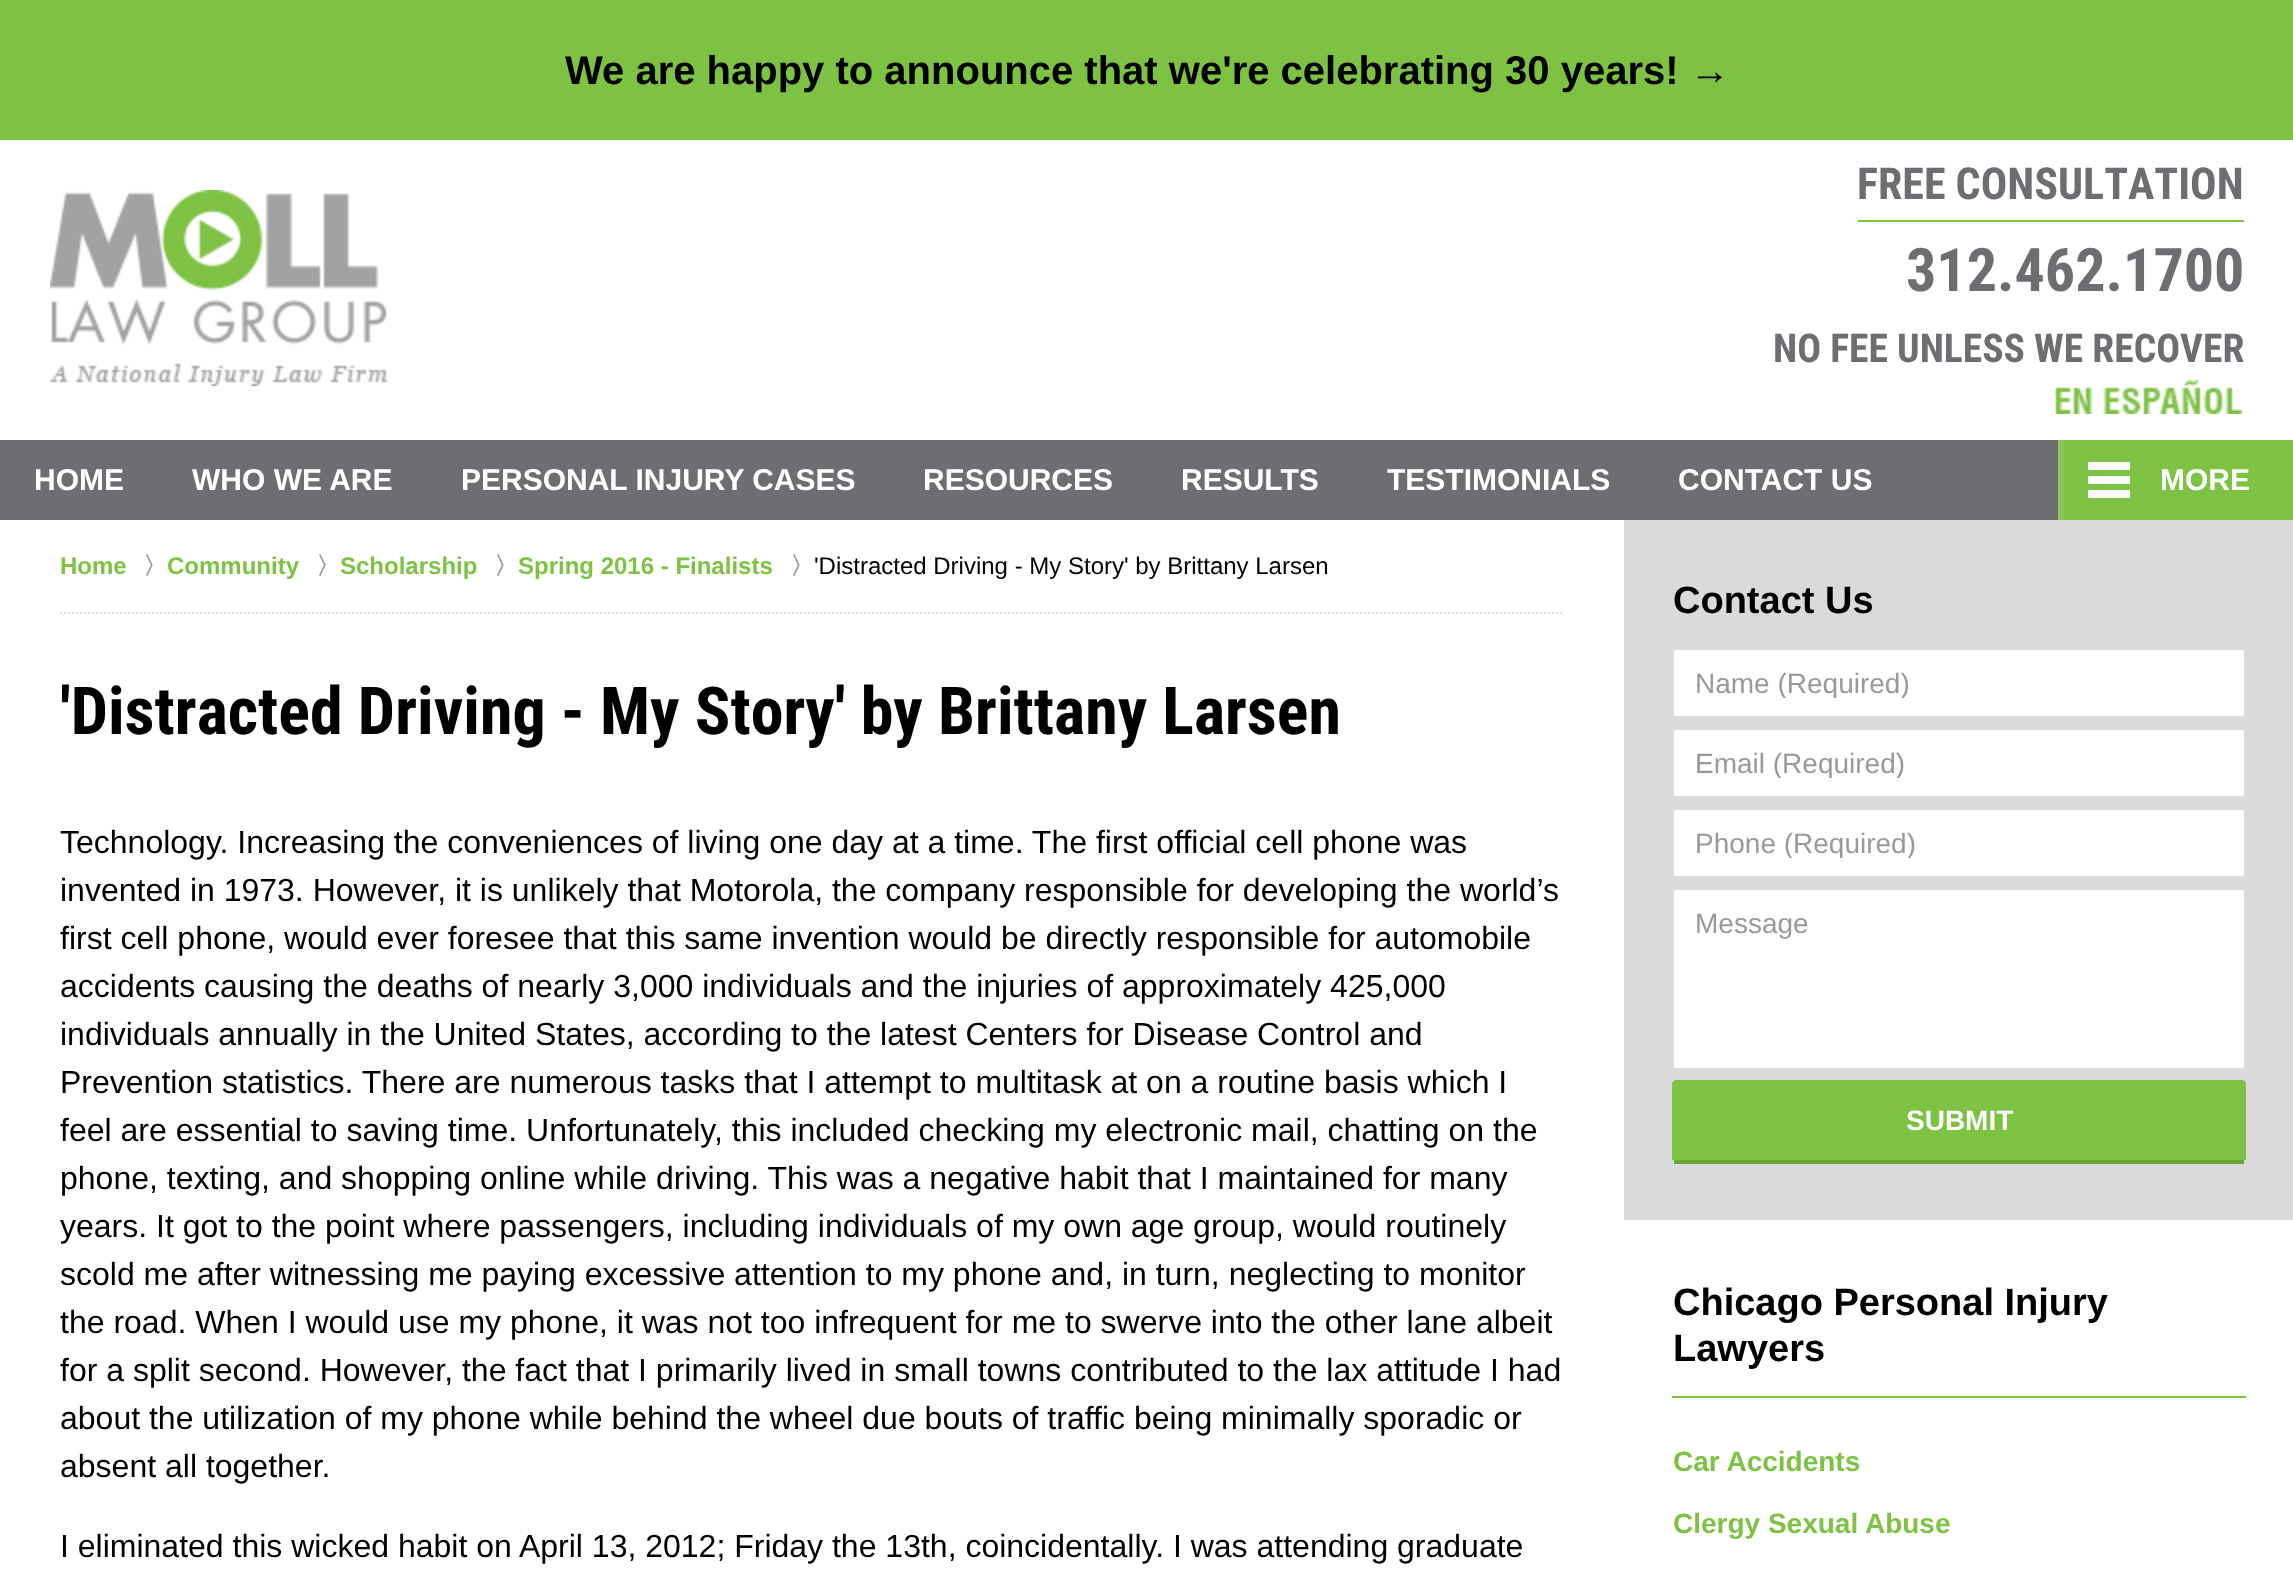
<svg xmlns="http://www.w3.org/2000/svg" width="2293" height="1582">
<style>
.a{font:bold 40px Liberation Sans;fill:#000}
.b{font:bold 44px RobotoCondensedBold;fill:#6d6e71}
.c{font:bold 60px RobotoCondensedBold;fill:#6d6e71}
.d{font:bold 39.6px RobotoCondensedBold;fill:#6d6e71}
.e{font:bold 30px Liberation Sans;fill:#fff}
.f{font:bold 24px Liberation Sans;fill:#7dc242}
.g{font:bold 24px WenQuanYi Zen Hei;fill:#999}
.h{font:24px Liberation Sans;fill:#000}
.i{font:bold 66px RobotoCondensedBold;fill:#000}
.j{font:32px Liberation Sans;fill:#000}
.k{font:bold 38px Liberation Sans;fill:#000}
.l{font:28px Liberation Sans;fill:#999}
.m{font:bold 28px Liberation Sans;fill:#fff}
.n{font:bold 28px Liberation Sans;fill:#7dc242}
</style>
<defs>
<clipPath id="clip1"><path d="M1694 666h530v32H1694z"/></clipPath>
<clipPath id="clip2"><path d="M1694 746h530v32H1694z"/></clipPath>
<clipPath id="clip3"><path d="M1694 826h530v32H1694z"/></clipPath>
</defs>
<rect width="100%" height="100%" fill="#fff"/>
<path fill="#7dc242" d="M0 0h2293v140H0z"/>
<path fill="#7dc242" d="M1858 220h386v2H1858z"/>
<image href="1.png" x="50" y="190" width="338" height="196"/>
<image href="2.png" x="2055" y="380" width="188" height="34"/>
<path fill="#6d6e72" d="M0 440h2058v80H0z"/>
<path fill="#7dc242" d="M2064 440h229v80H2064z"/>
<path fill="#8ac855" d="M2058 440h6v80H2058z"/>
<path fill="#fff" d="M2088 462h42v8H2088z"/>
<path fill="#fff" d="M2088 476h42v8H2088z"/>
<path fill="#fff" d="M2088 490h42v8H2088z"/>
<path fill="none" stroke="#e0e0e0" stroke-width="2" stroke-dasharray="2 2" d="M60 613h1504"/>
<path fill="#dadada" d="M1624 520h669v700H1624z"/>
<rect fill="#fff" stroke="#ddd" stroke-width="2" x="1673" y="649" width="572" height="68" rx="3"/>
<rect fill="#fff" stroke="#ddd" stroke-width="2" x="1673" y="729" width="572" height="68" rx="3"/>
<rect fill="#fff" stroke="#ddd" stroke-width="2" x="1673" y="809" width="572" height="68" rx="3"/>
<rect fill="#fff" stroke="#ddd" stroke-width="2" x="1673" y="889" width="572" height="180" rx="3"/>
<path fill="#7dc242" d="M1676 1080h566c2 0 4 2 4 4v76h-574v-76c0-2 2-4 4-4z"/>
<path fill="#69a635" d="M1674 1160h570v4H1674z"/>
<path fill="#7dc242" d="M1672 1396h574v2H1672z"/>
<text class="a" x="565" y="84">We are happy to announce that we're celebrating 30 years! →</text>
<text class="b" x="1857" y="199">FREE CONSULTATION</text>
<text class="c" x="1906" y="291">312.462.1700</text>
<text class="d" x="1773" y="362">NO FEE UNLESS WE RECOVER</text>
<text class="e" x="34" y="490">HOME</text>
<text class="e" x="192" y="490">WHO WE ARE</text>
<text class="e" x="461" y="490">PERSONAL INJURY CASES</text>
<text class="e" x="923" y="490">RESOURCES</text>
<text class="e" x="1181" y="490">RESULTS</text>
<text class="e" x="1387" y="490">TESTIMONIALS</text>
<text class="e" x="1678" y="490">CONTACT US</text>
<text class="e" x="2160" y="490">MORE</text>
<text class="f" x="60" y="574">Home</text>
<text class="g" x="143" y="574">〉</text>
<text class="f" x="167" y="574">Community</text>
<text class="g" x="316" y="574">〉</text>
<text class="f" x="340" y="574">Scholarship</text>
<text class="g" x="494" y="574">〉</text>
<text class="f" x="518" y="574">Spring 2016 - Finalists</text>
<text class="g" x="790" y="574">〉</text>
<text class="h" x="814" y="574">'Distracted Driving - My Story' by Brittany Larsen</text>
<text class="i" x="60" y="734">'Distracted Driving - My Story' by Brittany Larsen</text>
<text class="j" x="60" y="853">Technology. Increasing the conveniences of living one day at a time. The first official cell phone was</text>
<text class="j" x="60" y="901">invented in 1973. However, it is unlikely that Motorola, the company responsible for developing the world’s</text>
<text class="j" x="60" y="949">first cell phone, would ever foresee that this same invention would be directly responsible for automobile</text>
<text class="j" x="60" y="997">accidents causing the deaths of nearly 3,000 individuals and the injuries of approximately 425,000</text>
<text class="j" x="60" y="1045">individuals annually in the United States, according to the latest Centers for Disease Control and</text>
<text class="j" x="60" y="1093">Prevention statistics. There are numerous tasks that I attempt to multitask at on a routine basis which I</text>
<text class="j" x="60" y="1141">feel are essential to saving time. Unfortunately, this included checking my electronic mail, chatting on the</text>
<text class="j" x="60" y="1189">phone, texting, and shopping online while driving. This was a negative habit that I maintained for many</text>
<text class="j" x="60" y="1237">years. It got to the point where passengers, including individuals of my own age group, would routinely</text>
<text class="j" x="60" y="1285">scold me after witnessing me paying excessive attention to my phone and, in turn, neglecting to monitor</text>
<text class="j" x="60" y="1333">the road. When I would use my phone, it was not too infrequent for me to swerve into the other lane albeit</text>
<text class="j" x="60" y="1381">for a split second. However, the fact that I primarily lived in small towns contributed to the lax attitude I had</text>
<text class="j" x="60" y="1429">about the utilization of my phone while behind the wheel due bouts of traffic being minimally sporadic or</text>
<text class="j" x="60" y="1477">absent all together.</text>
<text class="j" x="60" y="1557">I eliminated this wicked habit on April 13, 2012; Friday the 13th, coincidentally. I was attending graduate</text>
<text class="k" x="1673" y="613">Contact Us</text>
<g clip-path="url(#clip1)">
<text class="l" x="1695" y="693">Name (Required)</text>
</g>
<g clip-path="url(#clip2)">
<text class="l" x="1695" y="773">Email (Required)</text>
</g>
<g clip-path="url(#clip3)">
<text class="l" x="1695" y="853">Phone (Required)</text>
</g>
<text class="l" x="1695" y="933">Message</text>
<text class="m" x="1906" y="1130">SUBMIT</text>
<text class="k" x="1673" y="1315">Chicago Personal Injury</text>
<text class="k" x="1673" y="1361">Lawyers</text>
<text class="n" x="1673" y="1471">Car Accidents</text>
<text class="n" x="1673" y="1533">Clergy Sexual Abuse</text>
</svg>
